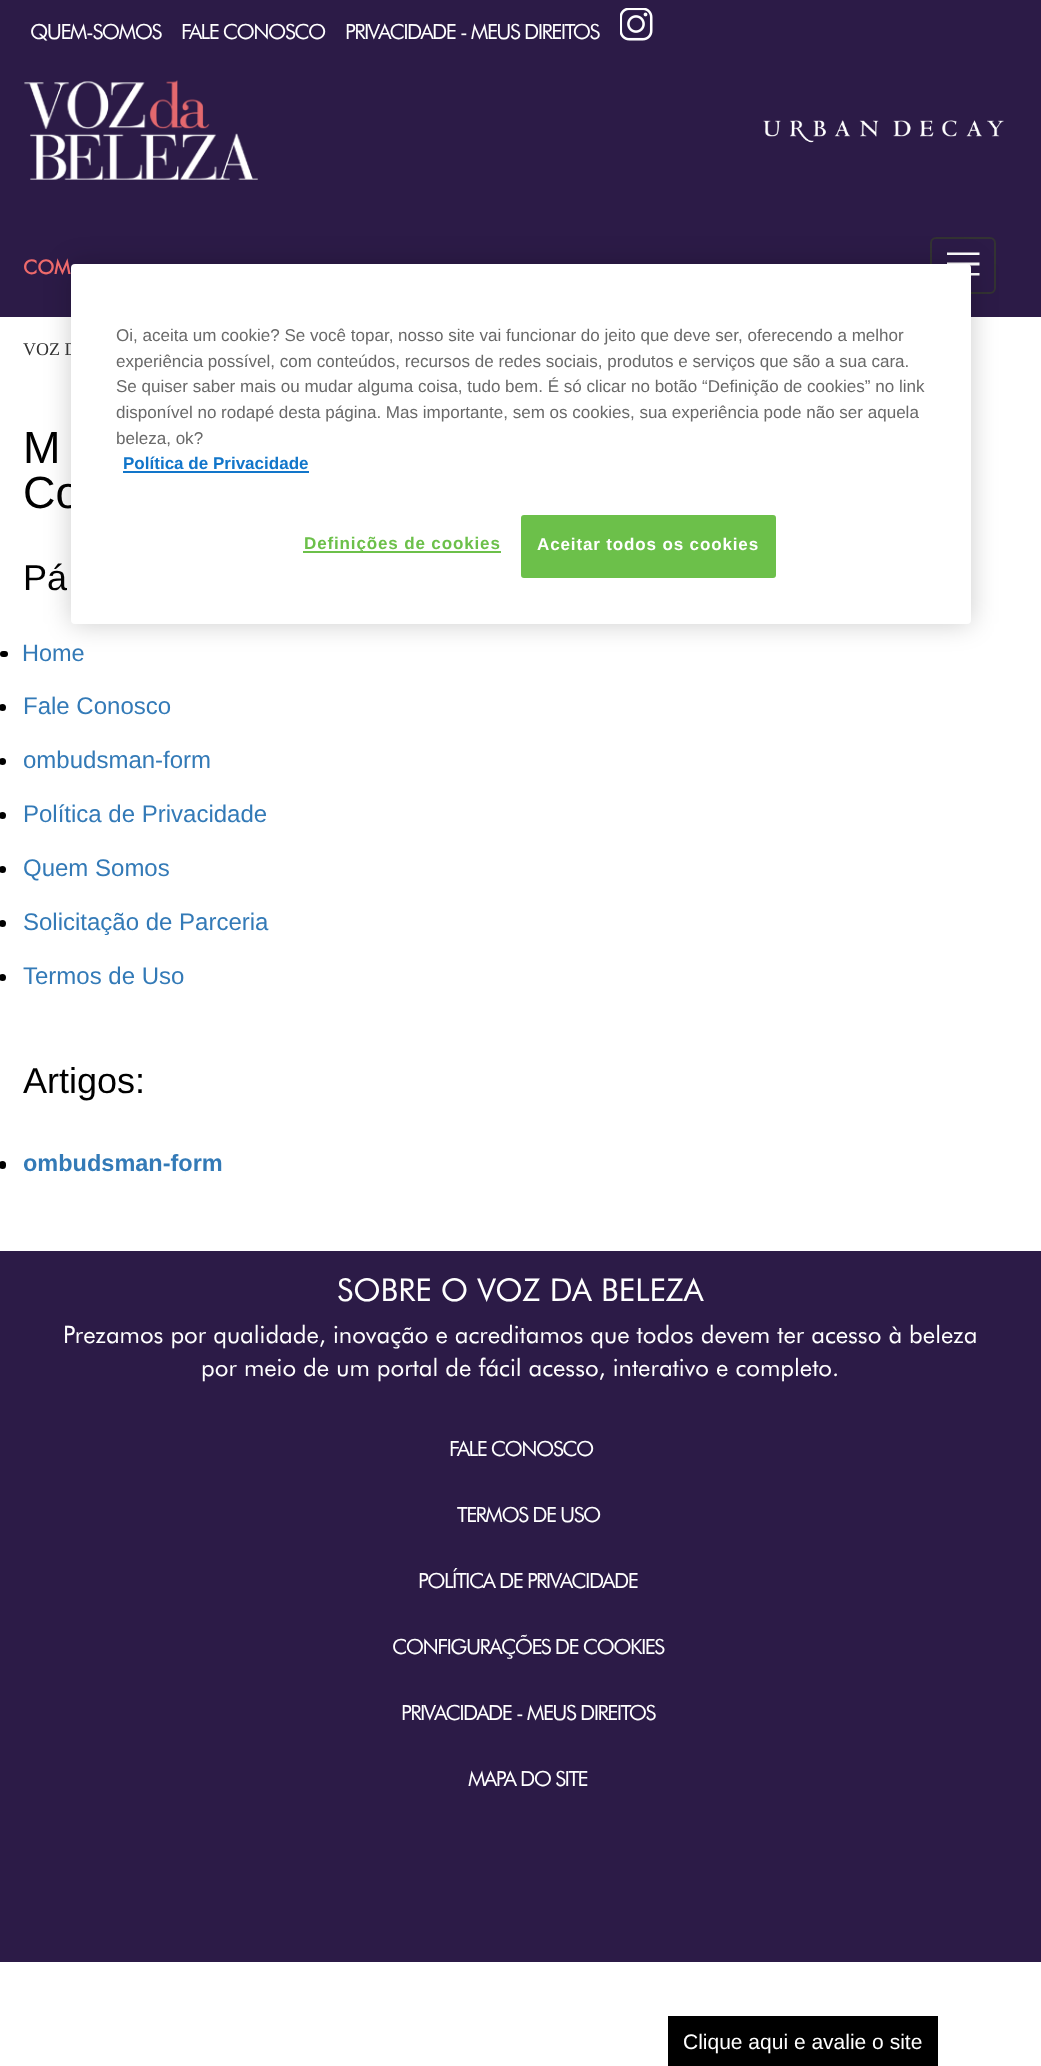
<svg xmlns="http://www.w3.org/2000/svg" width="1041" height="2066">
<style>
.a{font:21px Futura;letter-spacing:-1.5px;fill:#fff}
.b{font:bold 19.5px Futura;fill:#ee6a6b}
.c{font:18px Liberation Serif;fill:#333}
.d{font:45px Liberation Sans;fill:#000}
.e{font:36px Liberation Sans;fill:#000}
.f{font:23.5px Liberation Sans;fill:#337ab7}
.g{font:24px Liberation Sans;fill:#337ab7}
.h{font:bold 23.5px Liberation Sans;fill:#337ab7}
.i{font:21px Liberation Sans;fill:#fff}
.j{font:31.5px Futura;fill:#fff}
.k{font:24px Futura;fill:#fff}
.l{font:17.05px Liberation Sans;fill:#696969}
.m{font:bold 17.05px Liberation Sans;fill:#1276ca}
.n{font:bold 17.05px Liberation Sans;letter-spacing:0.85px;fill:#6cc04a}
.o{font:bold 17.05px Liberation Sans;letter-spacing:0.85px;fill:#fff}
</style>
<defs>
<clipPath id="clip1"><path d="M947 248h33v33H947z"/></clipPath>
</defs>
<rect width="100%" height="100%" fill="#fff"/>
<path fill="#2c1b47" d="M0 0h1041v317H0z"/>
<image href="1.png" x="620" y="8" width="33" height="33"/>
<image href="2.png" x="24" y="80" width="234" height="100"/>
<image href="3.png" x="763" y="120" width="241" height="23"/>
<rect fill="none" stroke="#333" stroke-width="2" x="931" y="238" width="64" height="55" rx="5"/>
<g clip-path="url(#clip1)">
<path fill="#fff" d="M946.5 252.5v2.5h33v-2.5zm0 10v3h33v-3zm0 10.5v2.5h33v-2.5z"/>
</g>
<rect fill="#000" y="651" width="8" height="6" rx="3"/>
<circle fill="#000" cx="2.5" cy="707.5" r="3.5"/>
<circle fill="#000" cx="2.5" cy="761.5" r="3.5"/>
<circle fill="#000" cx="2.5" cy="815.5" r="3.5"/>
<circle fill="#000" cx="2.5" cy="869.5" r="3.5"/>
<circle fill="#000" cx="2.5" cy="923.5" r="3.5"/>
<circle fill="#000" cx="2.5" cy="977.5" r="3.5"/>
<rect fill="#000" x="-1" y="1161" width="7" height="8" rx="3.5"/>
<path fill="#000" d="M668 2016h270v50H668z"/>
<path fill="#2c1b47" d="M0 1251h1041v711H0z"/>
<rect fill="#00000033" filter="blur(13.5px)" x="71" y="264" width="900" height="360" rx="4"/>
<text class="a" x="30" y="39">QUEM-SOMOS</text>
<text class="a" x="181" y="39">FALE CONOSCO</text>
<text class="a" x="345" y="39">PRIVACIDADE - MEUS DIREITOS</text>
<text class="b" x="23" y="274">COM</text>
<text class="c" x="23" y="355">VOZ D</text>
<text class="d" x="23" y="463">M</text>
<text class="d" x="23" y="508">Co</text>
<text class="e" x="23" y="590">Pá</text>
<text class="f" x="22" y="661">Home</text>
<text class="g" x="23" y="714">Fale Conosco</text>
<text class="g" x="23" y="768">ombudsman-form</text>
<text class="g" x="23" y="822">Política de Privacidade</text>
<text class="g" x="23" y="876">Quem Somos</text>
<text class="g" x="23" y="930">Solicitação de Parceria</text>
<text class="g" x="23" y="984">Termos de Uso</text>
<text class="e" x="23" y="1093">Artigos:</text>
<text class="h" x="23" y="1171">ombudsman-form</text>
<text class="i" x="683" y="2049">Clique aqui e avalie o site</text>
<text class="j" x="337" y="1301">SOBRE O VOZ DA BELEZA</text>
<text class="k" x="63" y="1343">Prezamos por qualidade, inovação e acreditamos que todos devem ter acesso à beleza</text>
<text class="k" x="201" y="1376">por meio de um portal de fácil acesso, interativo e completo.</text>
<text class="a" x="449" y="1456">FALE CONOSCO</text>
<text class="a" x="457" y="1522">TERMOS DE USO</text>
<text class="a" x="418" y="1588">POLÍTICA DE PRIVACIDADE</text>
<text class="a" x="392" y="1654">CONFIGURAÇÕES DE COOKIES</text>
<text class="a" x="401" y="1720">PRIVACIDADE - MEUS DIREITOS</text>
<text class="a" x="468" y="1786">MAPA DO SITE</text>
<rect fill="#fff" x="71" y="264" width="900" height="360" rx="4"/>
<text class="l" x="116" y="341">Oi, aceita um cookie? Se você topar, nosso site vai funcionar do jeito que deve ser, oferecendo a melhor</text>
<text class="l" x="116" y="367">experiência possível, com conteúdos, recursos de redes sociais, produtos e serviços que são a sua cara.</text>
<text class="l" x="116" y="392">Se quiser saber mais ou mudar alguma coisa, tudo bem. É só clicar no botão “Definição de cookies” no link</text>
<text class="l" x="116" y="418">disponível no rodapé desta página. Mas importante, sem os cookies, sua experiência pode não ser aquela</text>
<text class="l" x="116" y="444">beleza, ok?</text>
<text class="m" x="123" y="469">Política de Privacidade</text>
<path fill="#1276ca" d="M123 471h186v2H123z"/>
<path fill="#6cc04a" d="M303 551h198v2H303z"/>
<text class="n" x="304" y="549">Definições de cookies</text>
<rect fill="#6cc04a" stroke="#6cc04a" stroke-width="2" x="522" y="516" width="253" height="61" rx="2"/>
<text class="o" x="537" y="550">Aceitar todos os cookies</text>
</svg>
